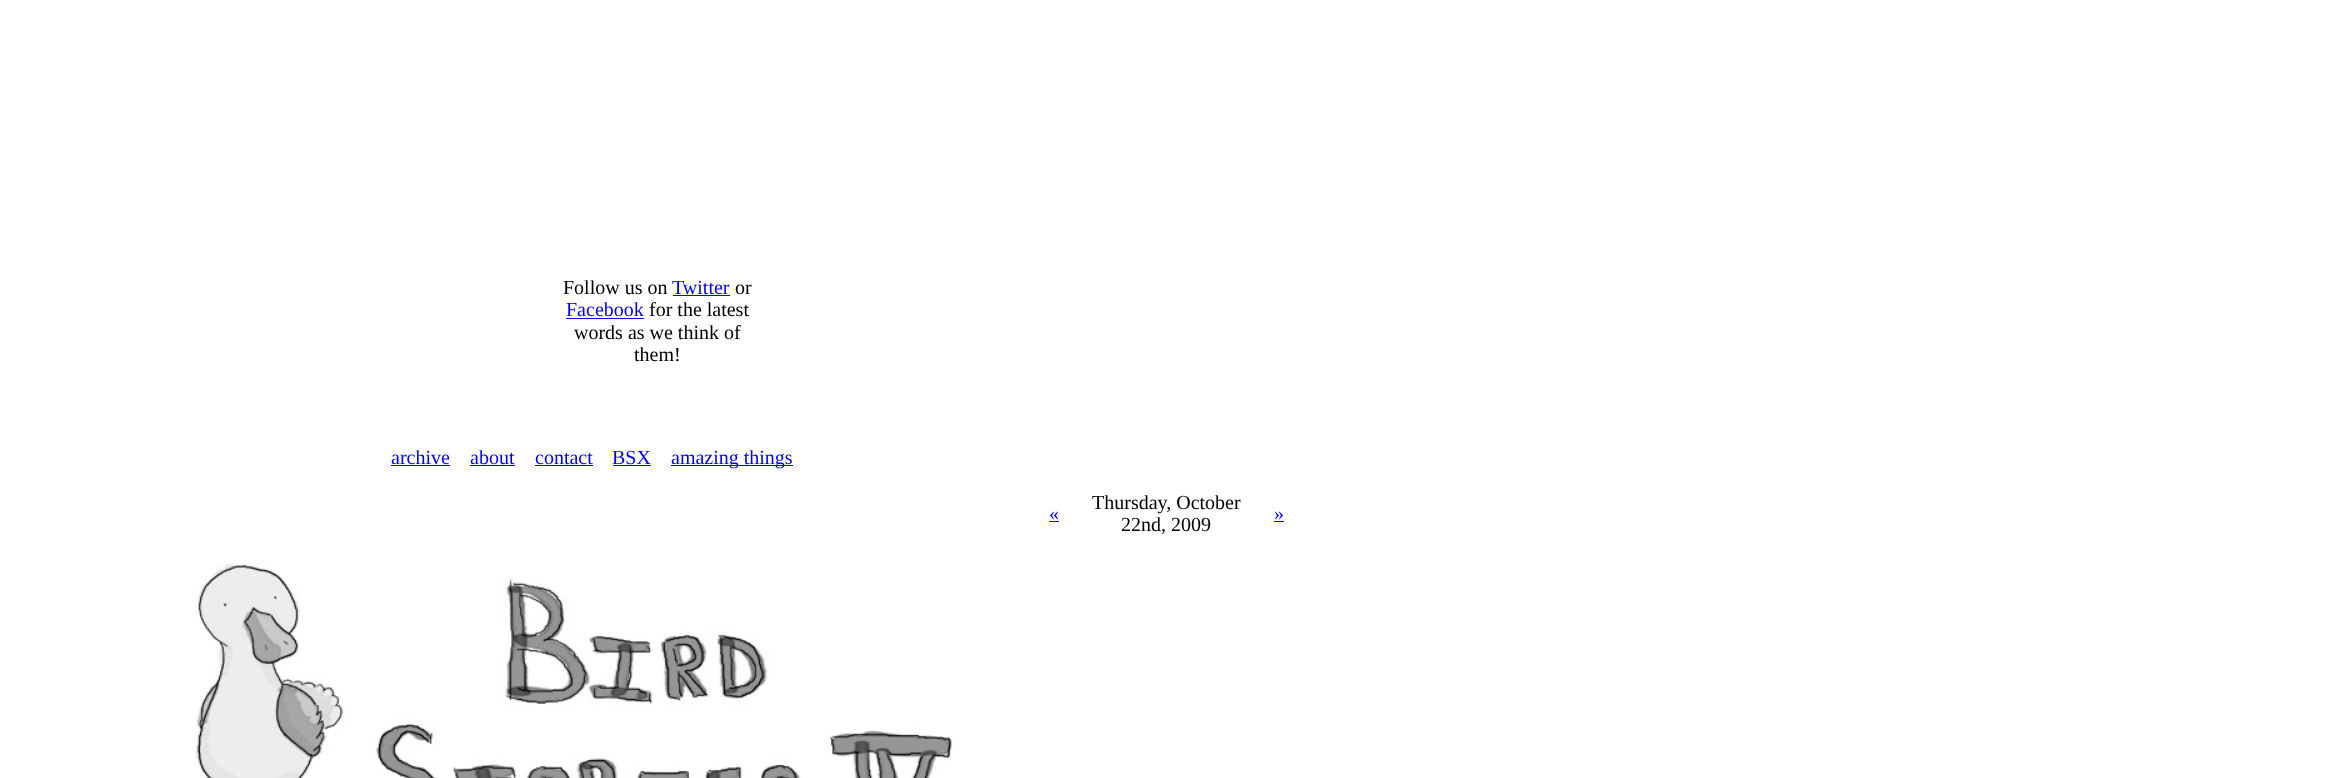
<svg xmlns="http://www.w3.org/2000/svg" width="2332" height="778">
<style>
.a{font:20px Liberation Serif;fill:#000}
.b{font:20px Liberation Serif;fill:#00e}
</style>
<rect width="100%" height="100%" fill="#fff"/>
<path fill="#00e" d="M673 295h57v1H673z"/>
<path fill="#00e" d="M566 318h78v1H566z"/>
<path fill="#00e" d="M391 465h59v1H391z"/>
<path fill="#00e" d="M470 465h45v1H470z"/>
<path fill="#00e" d="M535 465h58v1H535z"/>
<path fill="#00e" d="M613 465h38v1H613z"/>
<path fill="#00e" d="M671 465h122v1H671z"/>
<path fill="#00e" d="M1049 521h10v1H1049z"/>
<path fill="#00e" d="M1274 521h10v1H1274z"/>
<image href="1.png" x="195" y="563" width="758" height="215"/>
<text class="a" x="563" y="294">Follow us on</text>
<text class="b" x="672" y="294">Twitter</text>
<text class="a" x="735" y="294">or</text>
<text class="b" x="566" y="316">Facebook</text>
<text class="a" x="649" y="316">for the latest</text>
<text class="a" x="574" y="339">words as we think of</text>
<text class="a" x="634" y="361">them!</text>
<text class="b" x="391" y="464">archive</text>
<text class="b" x="470" y="464">about</text>
<text class="b" x="535" y="464">contact</text>
<text class="b" x="612" y="464">BSX</text>
<text class="b" x="671" y="464">amazing things</text>
<text class="b" x="1049" y="520">«</text>
<text class="a" x="1092" y="509">Thursday, October</text>
<text class="a" x="1121" y="531">22nd, 2009</text>
<text class="b" x="1274" y="520">»</text>
</svg>
